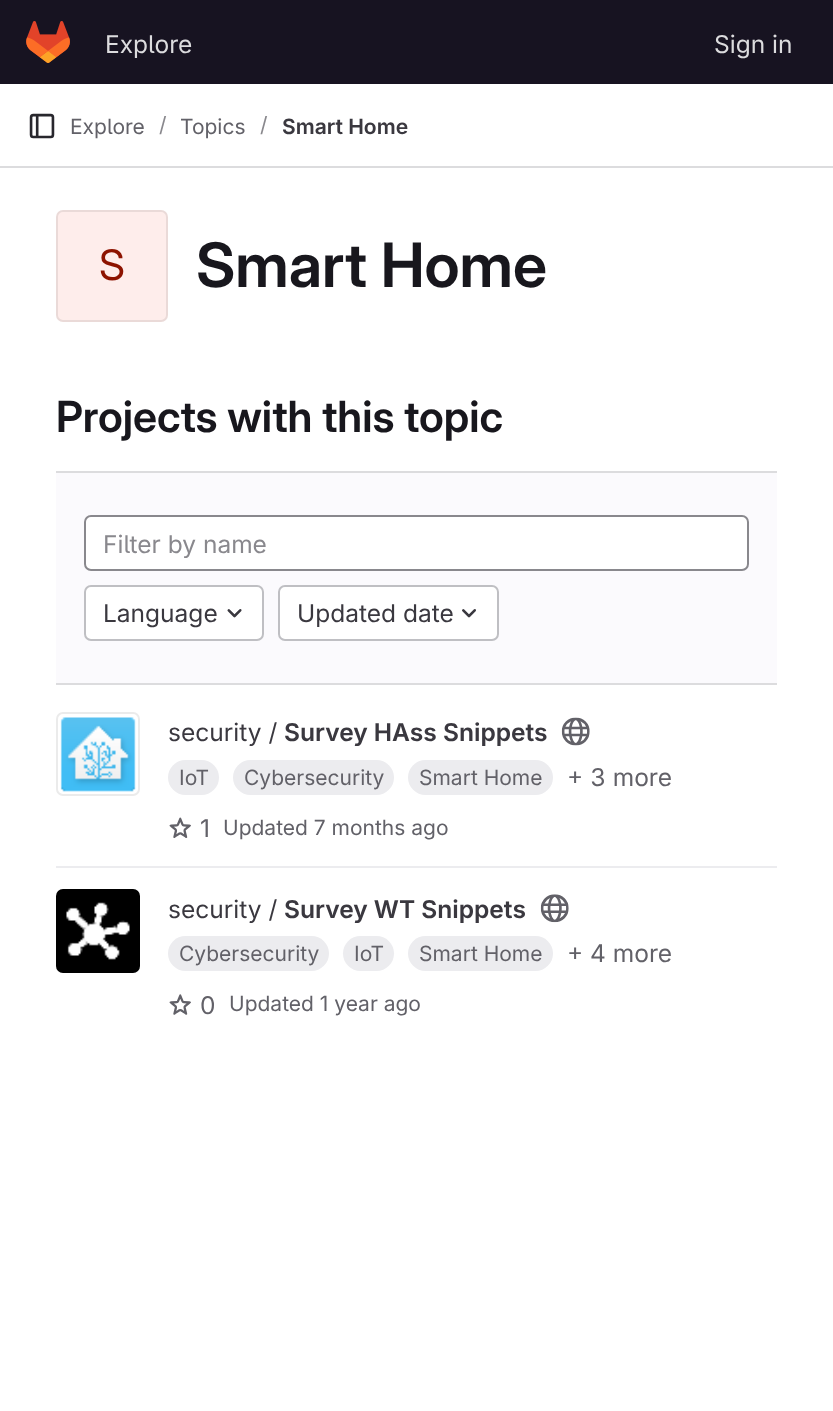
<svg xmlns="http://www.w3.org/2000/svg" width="833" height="1411">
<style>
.a{font:24.5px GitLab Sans;fill:#dcdcde}
.b{font:21px GitLab Sans;fill:#626168}
.c{font:21px GitLab Sans;fill:#89888d}
.d{font:600 21px 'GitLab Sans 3';fill:#3a383f}
.e{font:42px 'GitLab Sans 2';fill:#8d1300}
.f{font:600 61.25px GitLab Sans;fill:#18171d}
.g{font:600 42.9px 'GitLab Sans 2';fill:#18171d}
.h{font:24.5px GitLab Sans;fill:#89888d}
.i{font:24.5px GitLab Sans;fill:#3a383f}
.j{font:600 24.5px 'GitLab Sans 3';fill:#3a383f}
.k{font:24.5px GitLab Sans;fill:#626168}
</style>
<rect width="100%" height="100%" fill="#fff"/>
<path fill="#171321" d="M0 0h833v84H0z"/>
<image href="1.png" x="26" y="21" width="44" height="42"/>
<path fill="#dcdcde" d="M0 166h833v2H0z"/>
<image href="2.png" x="29" y="113" width="26" height="26"/>
<rect fill="#feedeb" x="56" y="210" width="112" height="112" rx="7"/>
<rect fill="none" stroke="#05050614" stroke-width="2" x="57" y="211" width="110" height="110" rx="6"/>
<path fill="#dcdcde" d="M56 471h721v2H56z"/>
<path fill="#fbfafd" d="M56 473h721v210H56z"/>
<path fill="#dcdcde" d="M56 683h721v2H56z"/>
<rect fill="#fff" stroke="#89888d" stroke-width="2" x="85" y="516" width="663" height="54" rx="6"/>
<rect fill="#fff" stroke="#bfbfc3" stroke-width="2" x="85" y="586" width="178" height="54" rx="6"/>
<image href="3.png" x="227" y="609" width="15" height="9"/>
<rect fill="#fff" stroke="#bfbfc3" stroke-width="2" x="279" y="586" width="219" height="54" rx="6"/>
<image href="4.png" x="462" y="609" width="14" height="9"/>
<path fill="#ececef" d="M56 866h721v2H56z"/>
<image href="5.png" x="60" y="717" width="76" height="75"/>
<rect fill="none" stroke="#ebebeb" stroke-width="2" x="57" y="713" width="82" height="82" rx="6"/>
<image href="6.png" x="561" y="717" width="29" height="29"/>
<rect fill="#ececef" x="168" y="760" width="51" height="35" rx="17.5"/>
<rect fill="#ececef" x="233" y="760" width="161" height="35" rx="17.5"/>
<rect fill="#ececef" x="408" y="760" width="145" height="35" rx="17.5"/>
<image href="7.png" x="169" y="817" width="22" height="21"/>
<image href="8.png" x="56" y="889" width="84" height="84"/>
<rect fill="none" stroke="#05050614" stroke-width="2" x="57" y="890" width="82" height="82" rx="6"/>
<image href="9.png" x="540" y="894" width="29" height="29"/>
<rect fill="#ececef" x="168" y="936" width="161" height="35" rx="17.5"/>
<rect fill="#ececef" x="343" y="936" width="51" height="35" rx="17.5"/>
<rect fill="#ececef" x="408" y="936" width="145" height="35" rx="17.5"/>
<image href="10.png" x="169" y="994" width="22" height="21"/>
<text class="a" x="105" y="53">Explore</text>
<text class="a" x="714" y="53">Sign in</text>
<text class="b" x="70" y="134">Explore</text>
<text class="c" x="159" y="132">/</text>
<text class="b" x="180" y="134">Topics</text>
<text class="c" x="260" y="132">/</text>
<text class="d" x="282" y="134">Smart Home</text>
<text class="e" x="99" y="280">S</text>
<text class="f" x="196" y="287">Smart Home</text>
<text class="g" x="56" y="432">Projects with this topic</text>
<text class="h" x="103" y="553">Filter by name</text>
<text class="i" x="103" y="622">Language</text>
<text class="i" x="297" y="622">Updated date</text>
<text class="i" x="168" y="741">security /</text>
<text class="j" x="284" y="741">Survey HAss Snippets</text>
<text class="b" x="179" y="785">IoT</text>
<text class="b" x="244" y="785">Cybersecurity</text>
<text class="b" x="419" y="785">Smart Home</text>
<text class="k" x="567" y="786">+ 3 more</text>
<text class="k" x="200" y="837">1</text>
<text class="b" x="223" y="835">Updated 7 months ago</text>
<text class="i" x="168" y="918">security /</text>
<text class="j" x="284" y="918">Survey WT Snippets</text>
<text class="b" x="179" y="961">Cybersecurity</text>
<text class="b" x="354" y="961">IoT</text>
<text class="b" x="419" y="961">Smart Home</text>
<text class="k" x="567" y="962">+ 4 more</text>
<text class="k" x="200" y="1014">0</text>
<text class="b" x="229" y="1011">Updated 1 year ago</text>
</svg>
